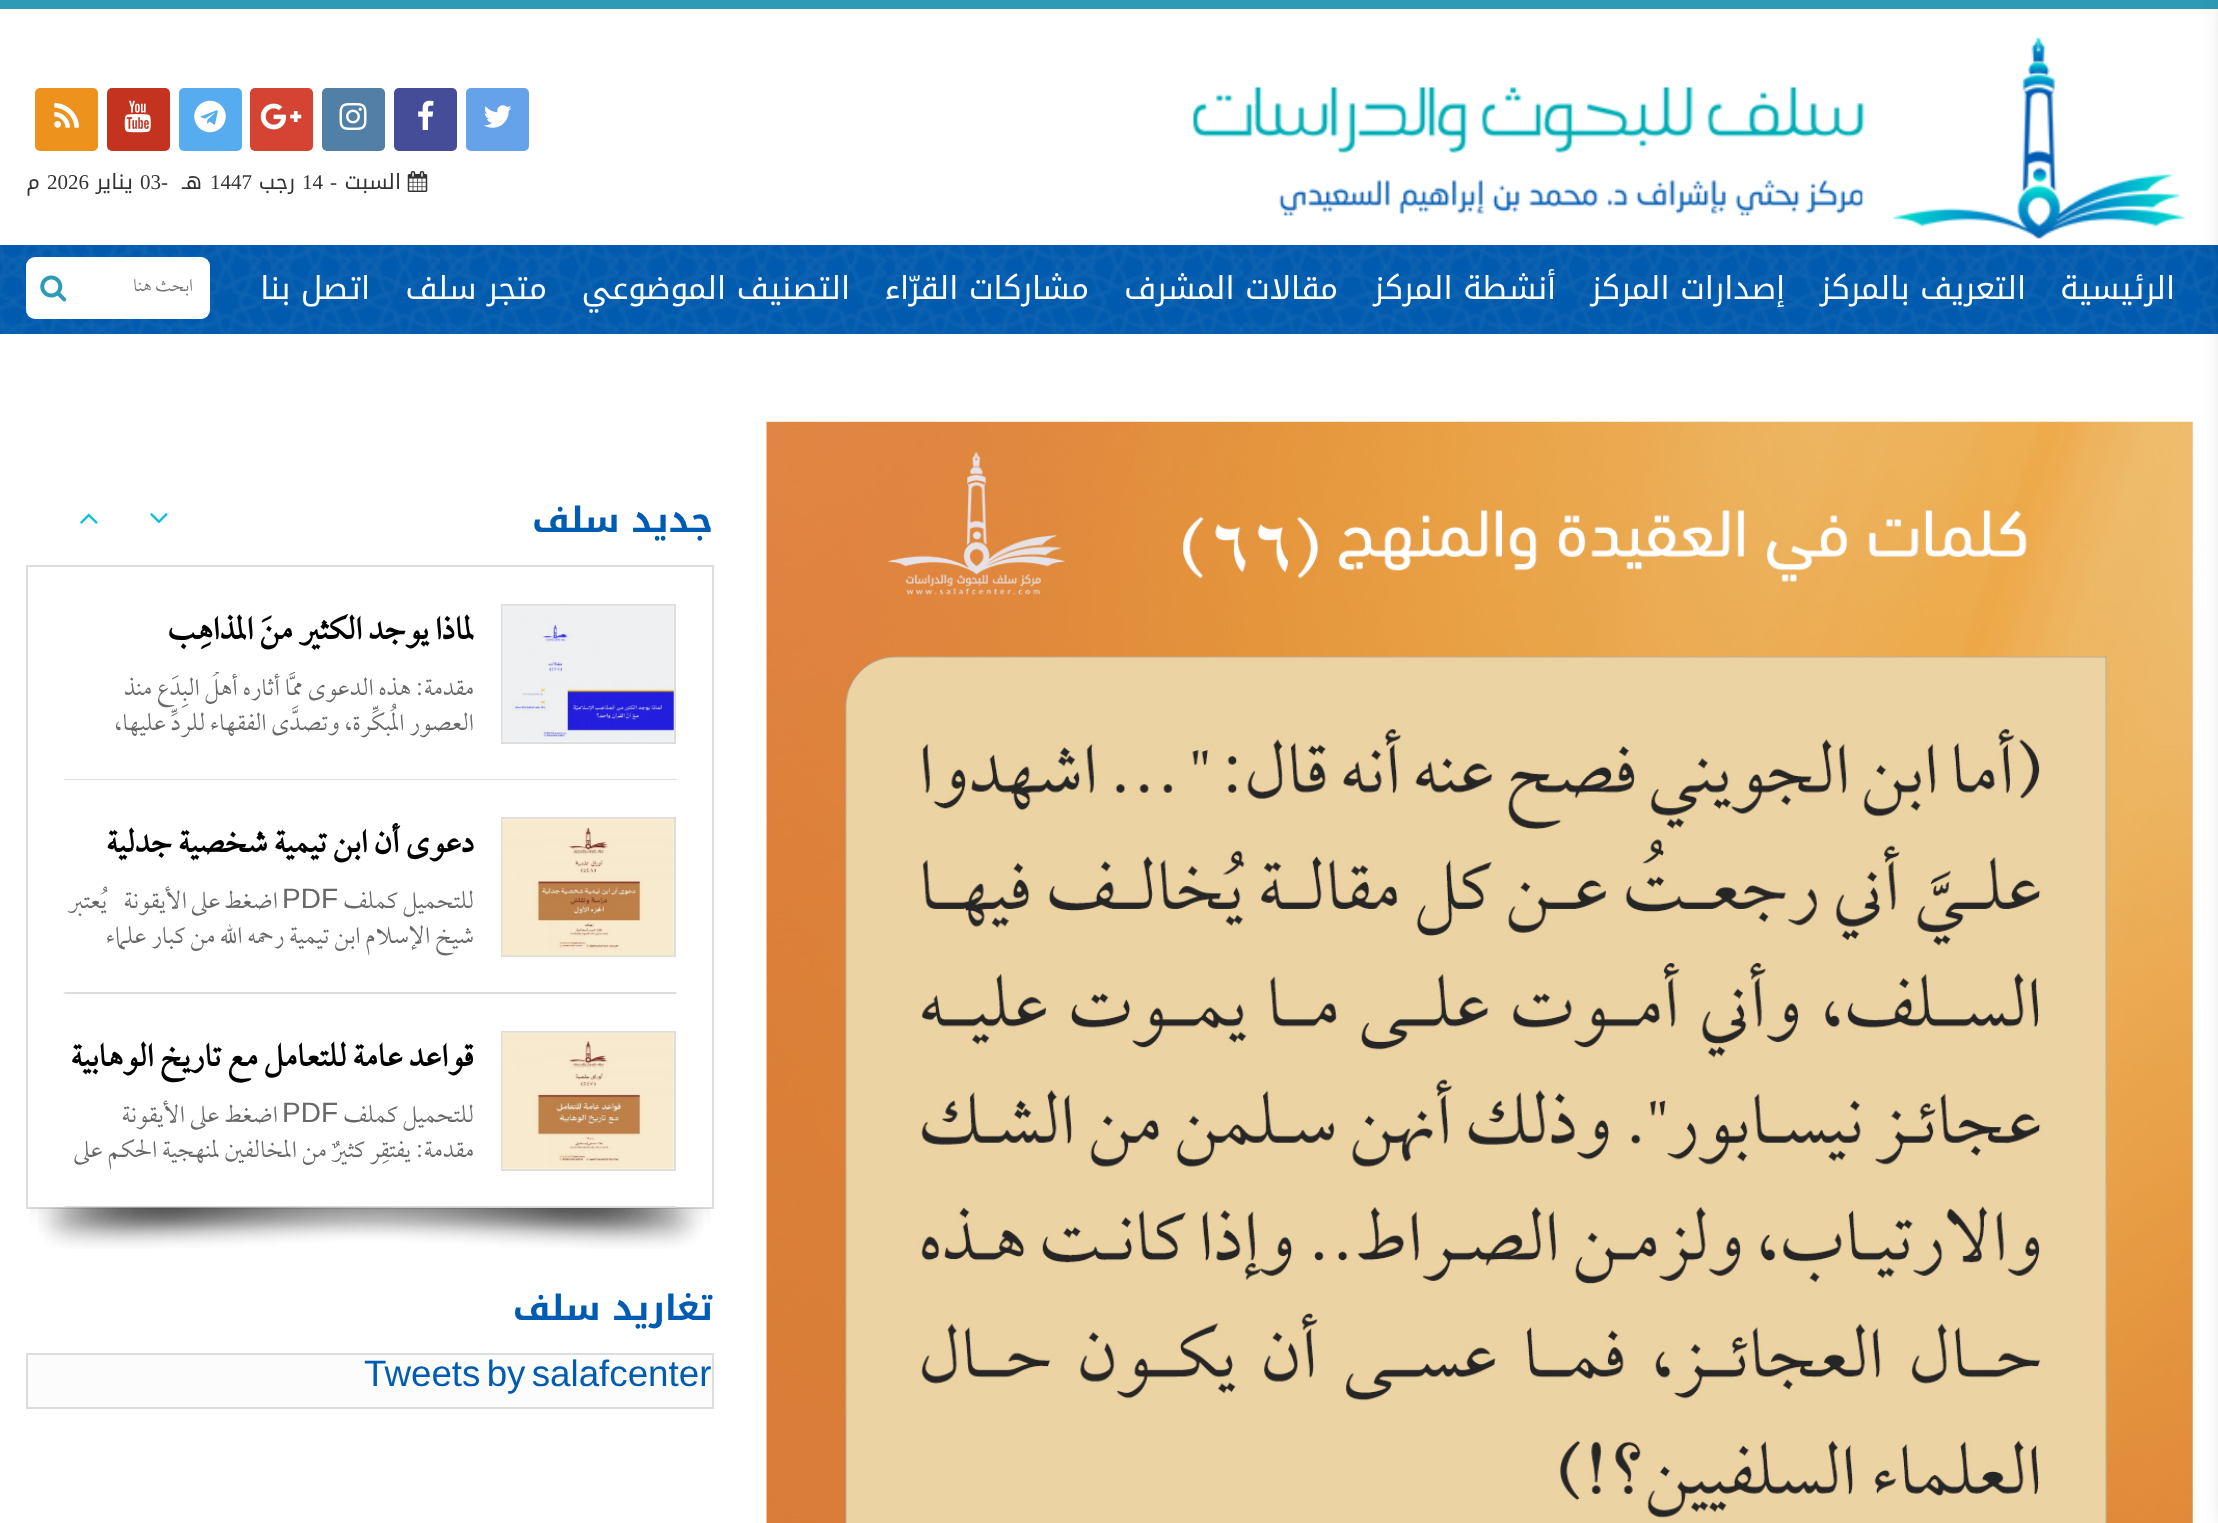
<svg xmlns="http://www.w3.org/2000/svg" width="2218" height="1523">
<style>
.a{font:21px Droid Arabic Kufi;direction:rtl;fill:#333}
.b{font:21px Liberation Serif;direction:rtl;fill:#333}
.c{font:21px Liberation Serif;fill:#333}
.d{font:31.5px Droid Arabic Kufi;direction:rtl;fill:#fff}
.e{font:300 21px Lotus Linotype;direction:rtl;fill:#757575}
.f{font:bold 35px Droid Arabic Kufi;direction:rtl;fill:#005cb2}
.g{font:bold 36.75px Lotus Linotype;direction:rtl;fill:#000}
.h{font:300 28px Lotus Linotype;direction:rtl;fill:#686868}
.i{font:28px Liberation Sans;fill:#686868}
.j{font:36.75px Liberation Sans;fill:#005cb2}
</style>
<defs>
<clipPath id="clip1"><path d="M65 672h409v70H65z"/></clipPath>
</defs>
<rect width="100%" height="100%" fill="#fff"/>
<path fill="#2d9bb6" d="M0 0h2218v9H0z"/>
<image href="10.png" x="0" y="245" width="2218" height="89"/>
<image href="12.png" x="766" y="421" width="1427" height="1102"/>
<path fill="#211717ad" filter="blur(17.5px)" d="M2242 0h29v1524H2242z"/>
<image href="1.png" x="1192" y="36" width="994" height="204"/>
<rect fill="#65a2ea" x="466" y="88" width="63" height="63" rx="5"/>
<image href="2.png" x="484" y="105" width="28" height="23"/>
<rect fill="#454c98" x="394" y="88" width="63" height="63" rx="5"/>
<image href="3.png" x="418" y="100" width="16" height="30"/>
<rect fill="#517fa6" x="322" y="88" width="63" height="63" rx="5"/>
<image href="4.png" x="339" y="103" width="28" height="27"/>
<rect fill="#d54433" x="250" y="88" width="63" height="63" rx="5"/>
<image href="5.png" x="260" y="103" width="42" height="27"/>
<rect fill="#56acee" x="179" y="88" width="63" height="63" rx="5"/>
<image href="6.png" x="194" y="100" width="32" height="33"/>
<rect fill="#c33320" x="107" y="88" width="63" height="63" rx="5"/>
<image href="7.png" x="124" y="100" width="27" height="33"/>
<rect fill="#ed931d" x="35" y="88" width="63" height="63" rx="5"/>
<image href="8.png" x="54" y="103" width="25" height="25"/>
<image href="9.png" x="407" y="171" width="21" height="21"/>
<rect fill="#fff" x="26" y="257" width="184" height="62" rx="9"/>
<image href="11.png" x="40" y="275" width="27" height="27"/>
<path fill="none" stroke="#ddd" stroke-width="2" d="M27 566h686v642H27z"/>
<image href="13.png" x="150" y="513" width="18" height="11"/>
<image href="14.png" x="80" y="513" width="18" height="11"/>
<path fill="#ddd" d="M677 780h-614l2-1h611z"/>
<path fill="none" stroke="#ddd" stroke-width="2" d="M502 605h173v138H502z"/>
<image href="15.png" x="502" y="605" width="172" height="137"/>
<path fill="#ddd" d="M677 994h-614l2-2h611z"/>
<path fill="none" stroke="#ddd" stroke-width="2" d="M502 818h173v138H502z"/>
<image href="16.png" x="502" y="818" width="172" height="138"/>
<image href="18.png" x="30" y="1207" width="673" height="42"/>
<path fill="#ddd" d="M677 1208h-614l2-2h611z"/>
<path fill="none" stroke="#ddd" stroke-width="2" d="M502 1032h173v138H502z"/>
<image href="17.png" x="502" y="1032" width="172" height="138"/>
<image href="19.png" x="38" y="1207" width="673" height="42"/>
<path fill="#fcfcfc" stroke="#ddd" stroke-width="2" d="M27 1354h686v54H27z"/>
<text class="a" x="401" y="189">السبت</text>
<text class="b" x="337" y="189">-</text>
<text class="c" x="302" y="189">14</text>
<text class="a" x="295" y="189">رجب</text>
<text class="c" x="210" y="189">1447</text>
<text class="a" x="202" y="189">هـ</text>
<text class="c" x="140" y="189">03-</text>
<text class="a" x="133" y="189">يناير</text>
<text class="c" x="47" y="189">2026</text>
<text class="a" x="40" y="189">م</text>
<text class="d" x="2175" y="299">الرئيسية</text>
<text class="d" x="2026" y="299">التعريف بالمركز</text>
<text class="d" x="1785" y="299">إصدارات المركز</text>
<text class="d" x="1556" y="299">أنشطة المركز</text>
<text class="d" x="1338" y="299">مقالات المشرف</text>
<text class="d" x="1089" y="299">مشاركات القرّاء</text>
<text class="d" x="850" y="299">التصنيف الموضوعي</text>
<text class="d" x="547" y="299">متجر سلف</text>
<text class="d" x="370" y="299">اتصل بنا</text>
<text class="e" x="193" y="291">ابحث هنا</text>
<text class="f" x="713" y="532">جديد سلف</text>
<text class="g" x="474" y="639">لماذا يوجد الكثير منَ المذاهِب</text>
<g clip-path="url(#clip1)">
<text class="h" x="474" y="695">مقدمة: هذه الدعوى ممَّا أثاره أهلُ البِدَع منذ</text>
</g>
<text class="h" x="474" y="730">العصور المُبكِّرة، وتصدَّى الفقهاء للردِّ عليها،</text>
<text class="g" x="474" y="852">دعوى أن ابن تيمية شخصية جدلية</text>
<text class="h" x="474" y="908">للتحميل كملف</text>
<text class="i" x="282" y="908">PDF</text>
<text class="h" x="278" y="908" word-spacing="-1">اضغط على الأيقونة</text>
<text class="h" x="107" y="908">يُعتبر</text>
<text class="h" x="474" y="943">شيخ الإسلام ابن تيمية رحمه الله من كبار علماء</text>
<text class="g" x="474" y="1066">قواعد عامة للتعامل مع تاريخ الوهابية</text>
<text class="h" x="474" y="1122">للتحميل كملف</text>
<text class="i" x="282" y="1122">PDF</text>
<text class="h" x="278" y="1122">اضغط على الأيقونة</text>
<text class="h" x="474" y="1157">مقدمة: يفتقِر كثيرٌ من المخالفين لمنهجية الحكم على</text>
<text class="f" x="713" y="1320">تغاريد سلف</text>
<text class="j" x="364" y="1386" word-spacing="-4">Tweets by salafcenter</text>
</svg>
